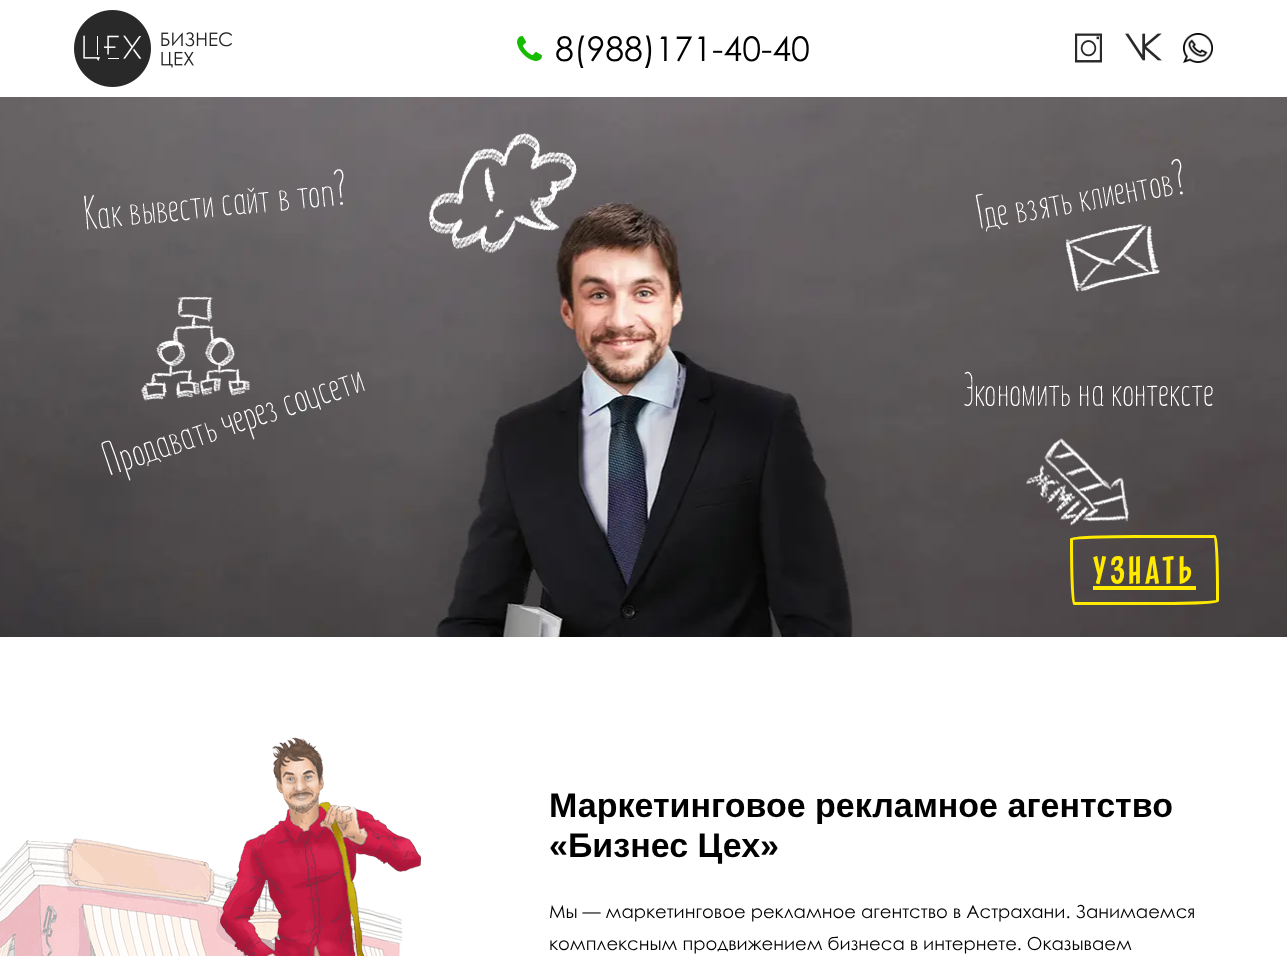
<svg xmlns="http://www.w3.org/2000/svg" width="1287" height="956">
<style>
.a{font:34px Century Gothic;fill:#000}
.b{font:40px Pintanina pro;letter-spacing:4px;fill:#ffea00}
.c{font:bold 34px Liberation Sans;fill:#000}
.d{font:18px Century Gothic;fill:#000}
</style>
<rect width="100%" height="100%" fill="#fff"/>
<image href="1.png" x="74" y="10" width="159" height="77"/>
<image href="2.png" x="517" y="36" width="25" height="25"/>
<image href="3.png" x="1075" y="33" width="27" height="30"/>
<image href="4.png" x="1125" y="33" width="37" height="28"/>
<image href="5.png" x="1183" y="33" width="30" height="30"/>
<image href="6.png" x="0" y="97" width="1287" height="540"/>
<image href="7.png" x="268" y="137" width="932" height="500"/>
<image href="8.png" x="84" y="169" width="260" height="61"/>
<image href="9.png" x="429" y="133" width="148" height="120"/>
<image href="10.png" x="975" y="159" width="208" height="133"/>
<image href="11.png" x="101" y="296" width="264" height="185"/>
<image href="12.png" x="964" y="371" width="249" height="35"/>
<image href="13.png" x="1026" y="438" width="103" height="88"/>
<path fill="none" stroke="#ffea00" stroke-width="3" d="M1136 536.5h79c1.5 0 2.5 25.5 2.5 57v7.5c0 1.5-25.5 2.5-57 2.5h-86.5c-1.5 0-2.5-29-2.5-64.5c0-1.5 29-2.5 64.5-2.5z"/>
<path fill="#ffea00" d="M1093 586h103v4H1093z"/>
<image href="14.png" x="0" y="838" width="403" height="118"/>
<image href="15.png" x="220" y="737" width="201" height="219"/>
<text class="a" x="555" y="61">8(988)171-40-40</text>
<text class="b" x="1093" y="584">Узнать</text>
<text class="c" x="549" y="817">Маркетинговое рекламное агентство</text>
<text class="c" x="549" y="857">«Бизнес Цех»</text>
<text class="d" x="549" y="918">Мы — маркетинговое рекламное агентство в Астрахани. Занимаемся</text>
<text class="d" x="549" y="950">комплексным продвижением бизнеса в интернете. Оказываем</text>
</svg>
